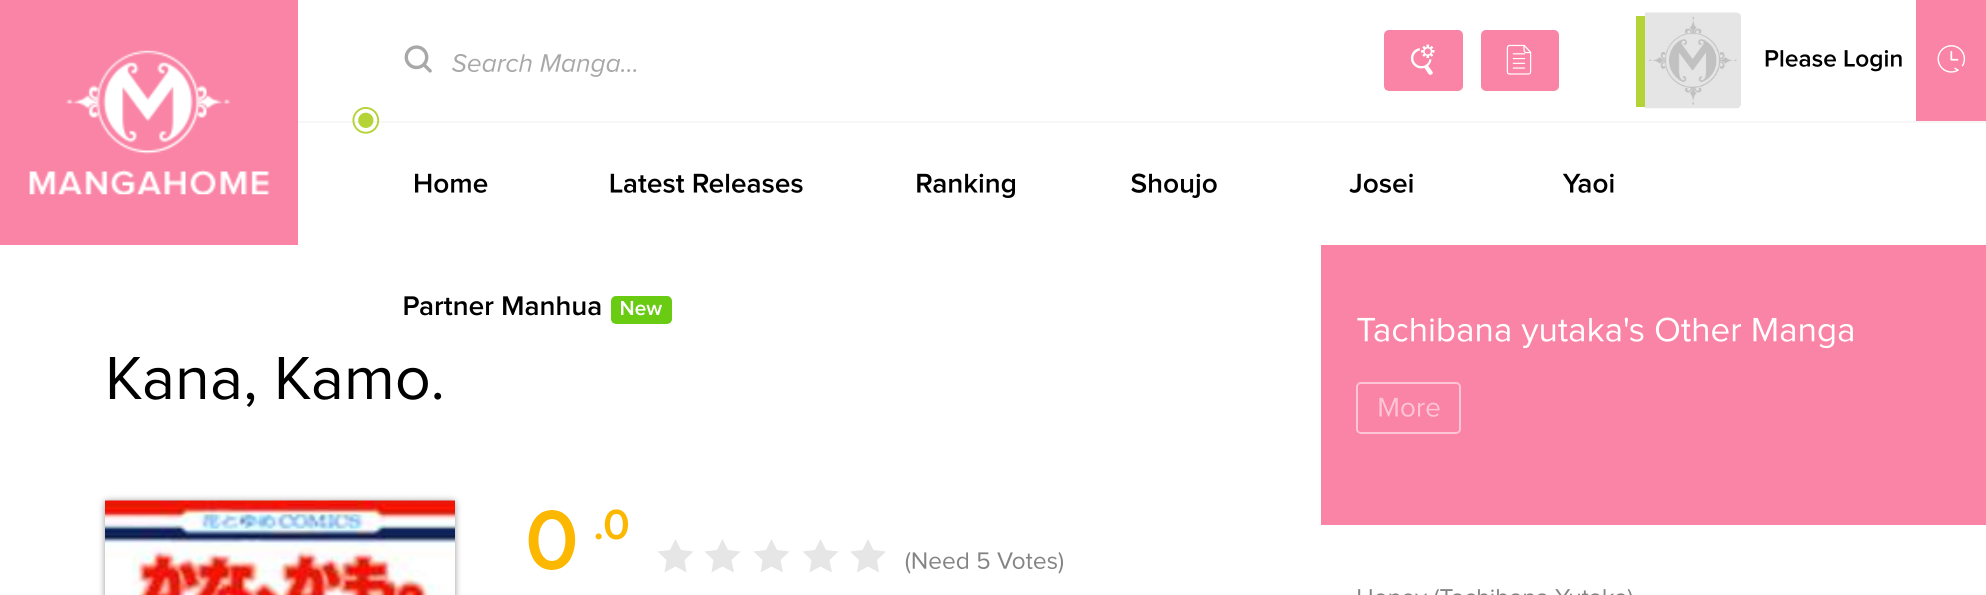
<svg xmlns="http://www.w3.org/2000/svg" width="1986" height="595">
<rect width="100%" height="100%" fill="#fff"/>
<path fill="#fa84a6" d="M0 0h298v245H0z"/>
<image href="1.png" x="29" y="50" width="241" height="145"/>
<path fill="#f7f7f7" d="M298 121h1688v2H298z"/>
<image href="2.png" x="404" y="45" width="28" height="28"/>
<image href="3.png" x="452" y="54" width="185" height="23"/>
<rect fill="#fa84a6" x="1384" y="30" width="79" height="61" rx="5"/>
<image href="4.png" x="1410" y="44" width="25" height="31"/>
<rect fill="#fa84a6" x="1481" y="30" width="78" height="61" rx="5"/>
<image href="5.png" x="1506" y="44" width="26" height="31"/>
<path fill="#b4d337" d="M1636 16h9v91H1636z"/>
<image href="6.png" x="1645" y="12" width="96" height="97"/>
<image href="7.png" x="1765" y="50" width="137" height="22"/>
<path fill="#fa84a6" d="M1916 0h70v121H1916z"/>
<image href="8.png" x="1937" y="45" width="29" height="28"/>
<image href="9.png" x="352" y="107" width="28" height="27"/>
<image href="10.png" x="415" y="173" width="73" height="20"/>
<image href="11.png" x="610" y="173" width="193" height="20"/>
<image href="12.png" x="917" y="173" width="98" height="25"/>
<image href="13.png" x="1131" y="173" width="86" height="25"/>
<image href="14.png" x="1349" y="173" width="64" height="20"/>
<image href="15.png" x="1562" y="173" width="52" height="20"/>
<image href="16.png" x="404" y="296" width="197" height="20"/>
<rect fill="#69cb12" x="611" y="296" width="61" height="28" rx="5"/>
<image href="17.png" x="621" y="301" width="41" height="15"/>
<image href="18.png" x="109" y="357" width="333" height="50"/>
<path fill="#999" filter="blur(3.5px)" d="M105 501h350v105H105z"/>
<image href="19.png" x="105" y="500" width="350" height="95"/>
<path fill="#fcb800" d="M552 570c31 0 31-60 0-60c-31 0-31 60 0 60zm0-9c-18 0-18-42 0-42c18 0 18 42 0 42z"/>
<image href="20.png" x="595" y="509" width="34" height="31"/>
<path fill="#e6e6e6" d="M693.5 551.5l-12.5-1.5l-5.5-11l-5.5 11l-12.5 1.5l9 8.5l-2 12.5l11-6l11 6l-2-12.5z"/>
<path fill="#e6e6e6" d="M740.5 551.5l-12.5-1.5l-5.5-11l-5.5 11l-12.5 1.5l9 8.5l-2 12.5l11-6l11.5 6l-2.5-12.5z"/>
<path fill="#e6e6e6" d="M789.5 551.5l-12.5-1.5l-5.5-11l-5.5 11l-12.5 1.5l9 8.5l-2 12.5l11-6l11.5 6l-2.5-12.5z"/>
<path fill="#e6e6e6" d="M838.5 551.5l-12.5-1.5l-5.5-11l-5.5 11l-12.5 1.5l9 8.5l-2 12.5l11-6l11.5 6l-2.5-12.5z"/>
<path fill="#e6e6e6" d="M886 551.5l-12.5-1.5l-5.5-11l-5.5 11l-12.5 1.5l9 8.5l-2 12.5l11-6l11 6l-2-12.5z"/>
<image href="21.png" x="905" y="552" width="158" height="22"/>
<path fill="#fa84a6" d="M1321 245h665v280H1321z"/>
<image href="22.png" x="1357" y="317" width="496" height="32"/>
<rect fill="none" stroke="#ffc4d5" stroke-width="2" x="1357" y="383" width="103" height="50" rx="4"/>
<image href="23.png" x="1379" y="397" width="61" height="20"/>
<image href="24.png" x="1358" y="588" width="274" height="7"/>
</svg>
